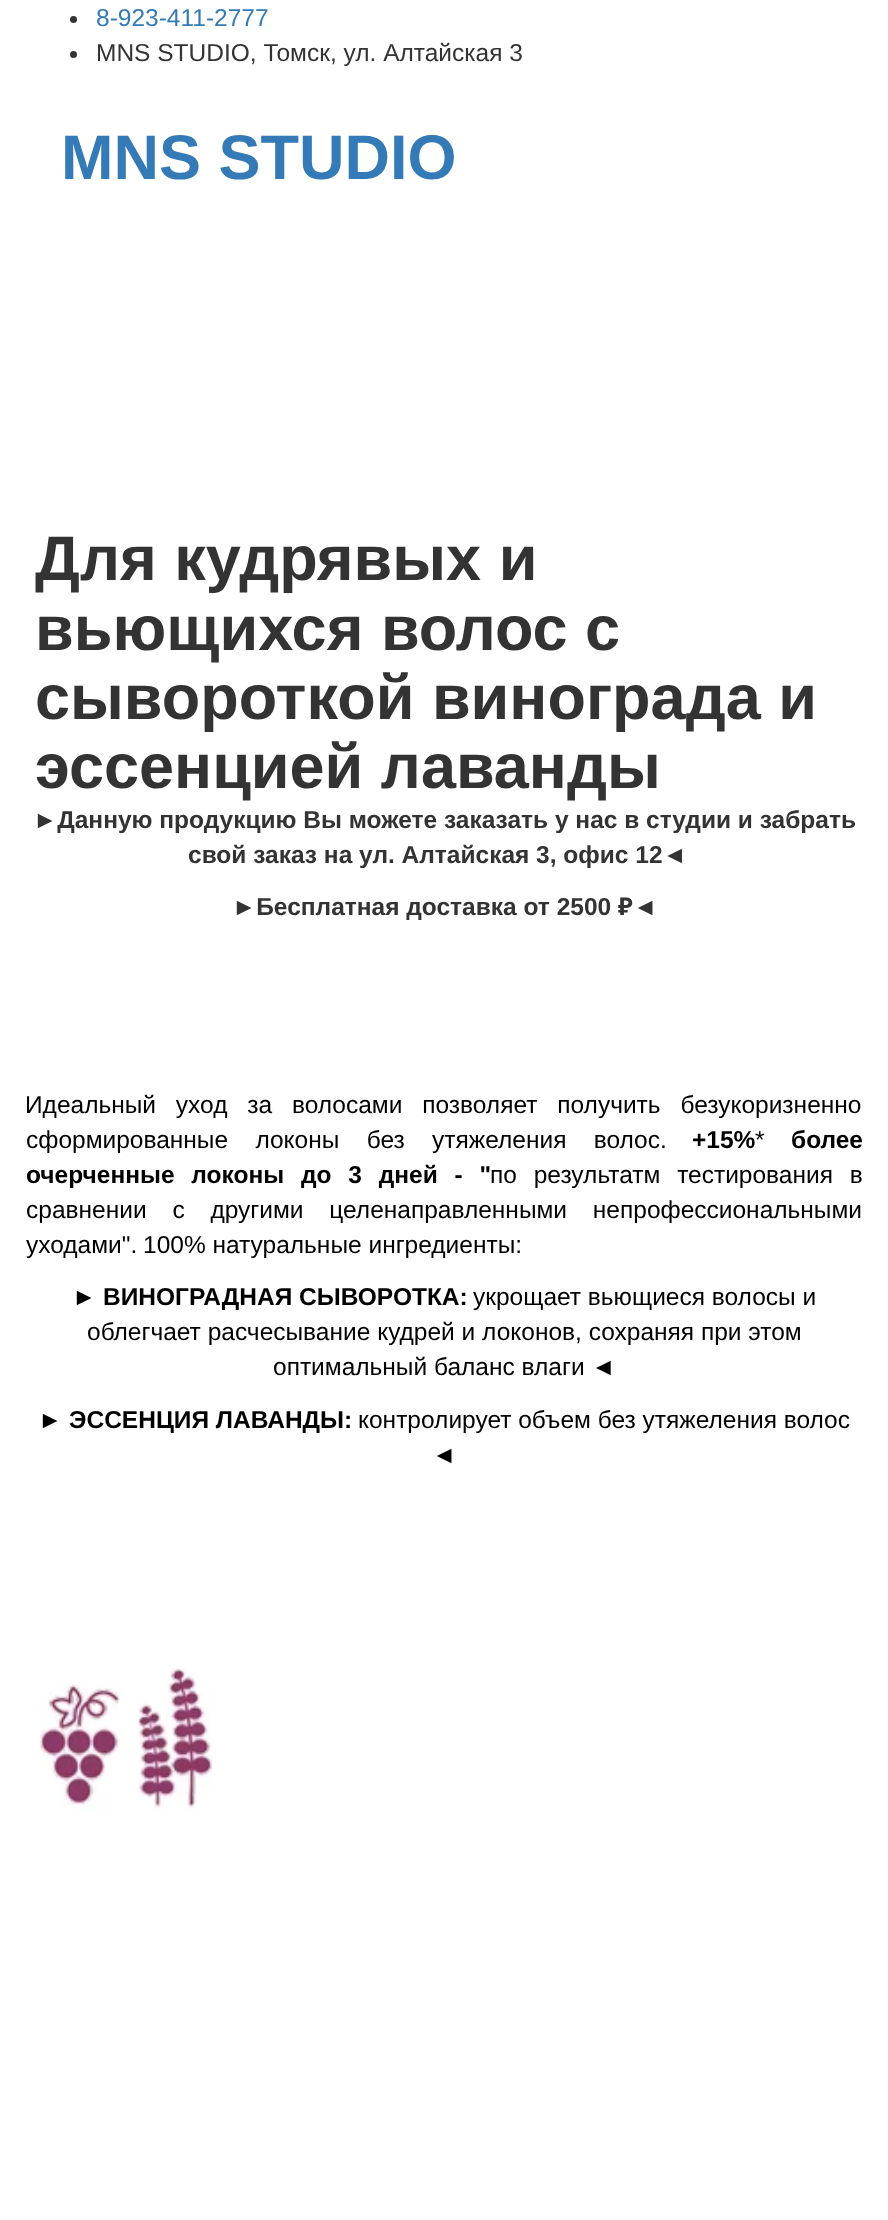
<svg xmlns="http://www.w3.org/2000/svg" width="888" height="2220">
<style>
.a{font:24.5px Liberation Sans;fill:#337ab7}
.b{font:24.5px Liberation Sans;fill:#333}
.c{font:bold 63px Liberation Sans;fill:#337ab7}
.d{font:bold 63px Liberation Sans;fill:#333}
.e{font:bold 24.5px Liberation Sans;fill:#333}
.f{font:bold 24.5px Noto Sans;fill:#333}
.g{font:24.5px Liberation Sans;fill:#000}
.h{font:bold 24.5px Liberation Sans;fill:#000}
</style>
<rect width="100%" height="100%" fill="#fff"/>
<circle fill="#333" cx="73.5" cy="19.5" r="3.5"/>
<circle fill="#333" cx="73.5" cy="54.5" r="3.5"/>
<image href="1.png" x="40" y="1666" width="175" height="146"/>
<text class="a" x="96" y="26">8-923-411-2777</text>
<text class="b" x="96" y="61">MNS STUDIO, Томск, ул. Алтайская 3</text>
<text class="c" x="61" y="179">MNS STUDIO</text>
<text class="d" x="35" y="580">Для кудрявых и</text>
<text class="d" x="35" y="650">вьющихся волос с</text>
<text class="d" x="35" y="719">сывороткой винограда и</text>
<text class="d" x="35" y="788">эссенцией лаванды</text>
<text class="e" x="33" y="828">►Данную продукцию Вы можете заказать у нас в студии и забрать</text>
<text class="e" x="188" y="863">свой заказ на ул. Алтайская 3, офис 12◄</text>
<text class="e" x="232" y="915">►Бесплатная доставка от 2500</text>
<text class="f" x="618" y="915">₽</text>
<text class="e" x="633" y="915">◄</text>
<text class="g" x="25" y="1113" word-spacing="13">Идеальный уход за волосами позволяет получить безукоризненно</text>
<text class="g" x="26" y="1148" word-spacing="20.5">сформированные локоны без утяжеления волос.</text>
<text class="h" x="692" y="1148">+15%</text>
<text class="g" x="755" y="1148">*</text>
<text class="h" x="791" y="1148">более</text>
<text class="h" x="26" y="1183" word-spacing="10">очерченные локоны до 3 дней - "</text>
<text class="g" x="490" y="1183" word-spacing="10">по результатм тестирования в</text>
<text class="g" x="26" y="1218" word-spacing="19">сравнении с другими целенаправленными непрофессиональными</text>
<text class="g" x="26" y="1253">уходами".</text>
<text class="g" x="143" y="1253">100% натуральные ингредиенты:</text>
<text class="h" x="72" y="1305">► ВИНОГРАДНАЯ СЫВОРОТКА:</text>
<text class="g" x="473" y="1305">укрощает вьющиеся волосы и</text>
<text class="g" x="87" y="1340">облегчает расчесывание кудрей и локонов, сохраняя при этом</text>
<text class="g" x="273" y="1375">оптимальный баланс влаги ◄</text>
<text class="h" x="38" y="1428">► ЭССЕНЦИЯ ЛАВАНДЫ:</text>
<text class="g" x="358" y="1428">контролирует объем без утяжеления волос</text>
<text class="g" x="432" y="1463">◄</text>
</svg>
